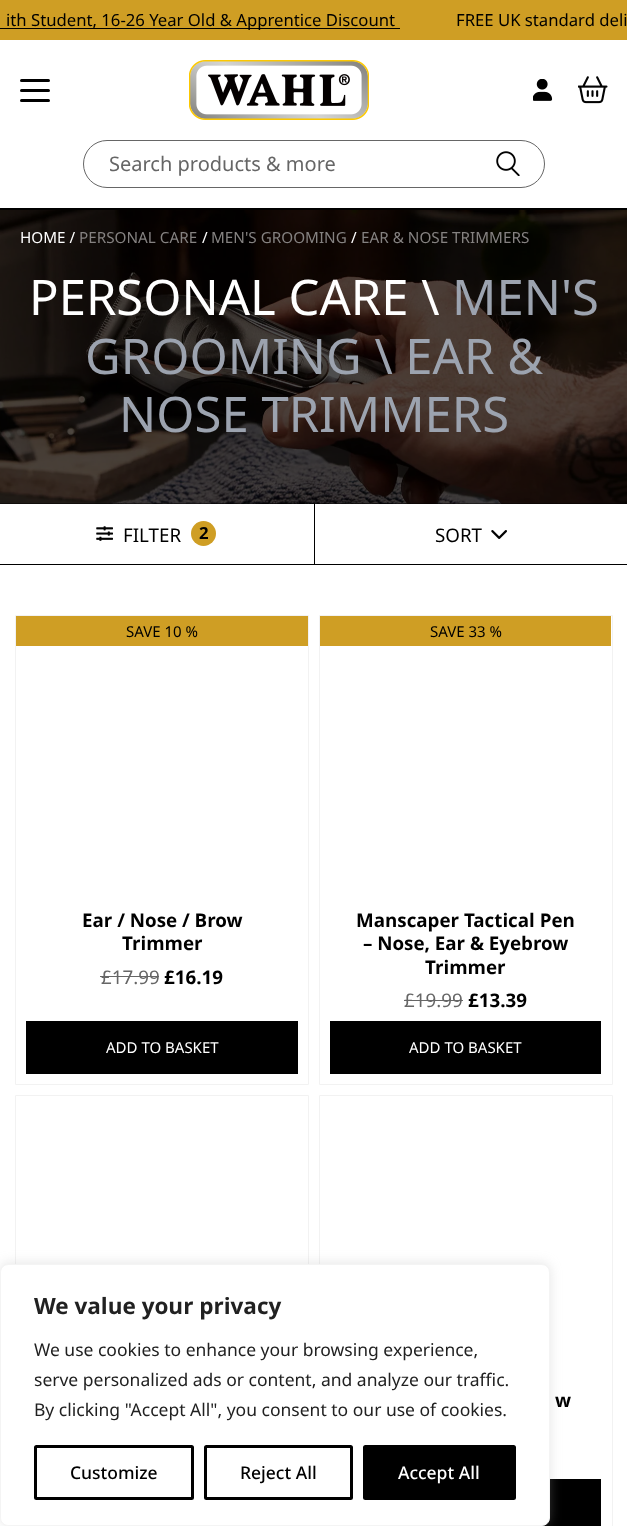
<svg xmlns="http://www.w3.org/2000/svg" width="627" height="1526">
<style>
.a{font:16.7px Noto Sans;fill:#000}
.b{font:20px Noto Sans;fill:#666}
.c{font:15.25px Noto Sans;fill:#fff}
.d{font:15.25px Noto Sans;fill:#858281}
.e{font:49px Noto Sans;fill:#fff}
.f{font:49px Noto Sans;fill:#9ca3af}
.g{font:18.75px Noto Sans;fill:#000}
.h{font:bold 16.7px Noto Sans;fill:#000}
.i{font:15px Noto Sans;fill:#000}
.j{font:bold 18.75px Noto Sans;fill:#000}
.k{font:18.75px Noto Sans;fill:#666}
.l{font:15px Noto Sans;fill:#fff}
.m{font:bold 22.5px Noto Sans;fill:#212121}
.n{font:17.5px Noto Sans;fill:#212121}
.o{font:500 17.5px Noto Sans;fill:#000}
.p{font:500 17.5px Noto Sans;fill:#fff}
</style>
<rect width="100%" height="100%" fill="#fff"/>
<path fill="#cf9e24" d="M0 0h627v40H0z"/>
<path fill="#000" d="M0 28h400v1H0z"/>
<rect fill="#000" x="20" y="79" width="30" height="3" rx="1.5"/>
<rect fill="#000" x="20" y="89" width="30" height="3" rx="1.5"/>
<rect fill="#000" x="20" y="99" width="30" height="3" rx="1.5"/>
<image href="1.png" x="189" y="60" width="180" height="60"/>
<image href="2.png" x="533" y="79" width="20" height="22"/>
<image href="3.png" x="578" y="76" width="30" height="28"/>
<rect fill="none" stroke="#666" x="83.5" y="140.5" width="461" height="47" rx="23.5"/>
<image href="4.png" x="496" y="151" width="24" height="25"/>
<path fill="#000" d="M0 208h627v357H0z"/>
<image href="5.png" x="0" y="210" width="627" height="294"/>
<path fill="#fff" d="M0 504h314v60H0z"/>
<image href="6.png" x="96" y="526" width="17" height="15"/>
<circle fill="#cf9e24" cx="203.5" cy="533.5" r="12.5"/>
<path fill="#fff" d="M315 504h312v60H315z"/>
<image href="7.png" x="491" y="530" width="16" height="9"/>
<path fill="none" stroke="#f2f2f2" d="M15.5 615.5h293v469H15.5z"/>
<path fill="#cf9e24" d="M16 616h292v30H16z"/>
<path fill="#666" d="M100 976h59v1H100z"/>
<path fill="#000" d="M26 1021h272v53H26z"/>
<path fill="none" stroke="#f2f2f2" d="M319.5 615.5h293v469H319.5z"/>
<path fill="#cf9e24" d="M320 616h291v30H320z"/>
<path fill="#666" d="M404 1000h59v1H404z"/>
<path fill="#000" d="M330 1021h271v53H330z"/>
<path fill="none" stroke="#f2f2f2" d="M15.5 1095.5h293v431H15.5z"/>
<path fill="none" stroke="#f2f2f2" d="M319.5 1095.5h293v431H319.5z"/>
<path fill="#000" d="M542 1479h59v47H542z"/>
<rect fill="#acabab4d" filter="blur(6px)" y="1263" width="550" height="262" rx="8"/>
<rect fill="#fff" stroke="#f4f4f4" x="0.5" y="1264.5" width="549" height="261" rx="7.5"/>
<rect fill="none" stroke="#000" stroke-width="3" x="35.5" y="1446.5" width="157" height="52" rx="1"/>
<rect fill="none" stroke="#000" stroke-width="3" x="205.5" y="1446.5" width="146" height="52" rx="1"/>
<rect fill="#000" stroke="#000" stroke-width="3" x="364.5" y="1446.5" width="150" height="52" rx="1"/>
<text class="a" x="6" y="26">ith Student, 16-26 Year Old &amp; Apprentice Discount</text>
<text class="a" x="456" y="26">FREE UK standard deli</text>
<text class="b" x="109" y="171">Search products &amp; more</text>
<text class="c" x="20" y="243">HOME /</text>
<text class="d" x="79" y="243">PERSONAL CARE</text>
<text class="c" x="202" y="243">/</text>
<text class="d" x="211" y="243">MEN'S GROOMING</text>
<text class="c" x="351" y="243">/</text>
<text class="d" x="361" y="243">EAR &amp; NOSE TRIMMERS</text>
<text class="e" x="29" y="315">PERSONAL CARE \</text>
<text class="f" x="452" y="315">MEN'S</text>
<text class="f" x="85" y="374">GROOMING \ EAR &amp;</text>
<text class="f" x="119" y="432">NOSE TRIMMERS</text>
<text class="g" x="123" y="542">FILTER</text>
<text class="h" x="199" y="539">2</text>
<text class="g" x="435" y="542">SORT</text>
<text class="i" x="126" y="637">SAVE 10 %</text>
<text class="j" x="82" y="927">Ear / Nose / Brow</text>
<text class="j" x="122" y="950">Trimmer</text>
<text class="k" x="101" y="984">£17.99</text>
<text class="j" x="164" y="984">£16.19</text>
<text class="l" x="106" y="1053">ADD TO BASKET</text>
<text class="i" x="430" y="637">SAVE 33 %</text>
<text class="j" x="356" y="927">Manscaper Tactical Pen</text>
<text class="j" x="363" y="950">– Nose, Ear &amp; Eyebrow</text>
<text class="j" x="425" y="974">Trimmer</text>
<text class="k" x="404" y="1007">£19.99</text>
<text class="j" x="468" y="1007">£13.39</text>
<text class="l" x="409" y="1053">ADD TO BASKET</text>
<text class="j" x="555" y="1407">w</text>
<text class="m" x="34" y="1314">We value your privacy</text>
<text class="n" x="34" y="1356">We use cookies to enhance your browsing experience,</text>
<text class="n" x="34" y="1386">serve personalized ads or content, and analyze our traffic.</text>
<text class="n" x="34" y="1416">By clicking "Accept All", you consent to our use of cookies.</text>
<text class="o" x="70" y="1479">Customize</text>
<text class="o" x="240" y="1479">Reject All</text>
<text class="p" x="398" y="1479">Accept All</text>
</svg>
